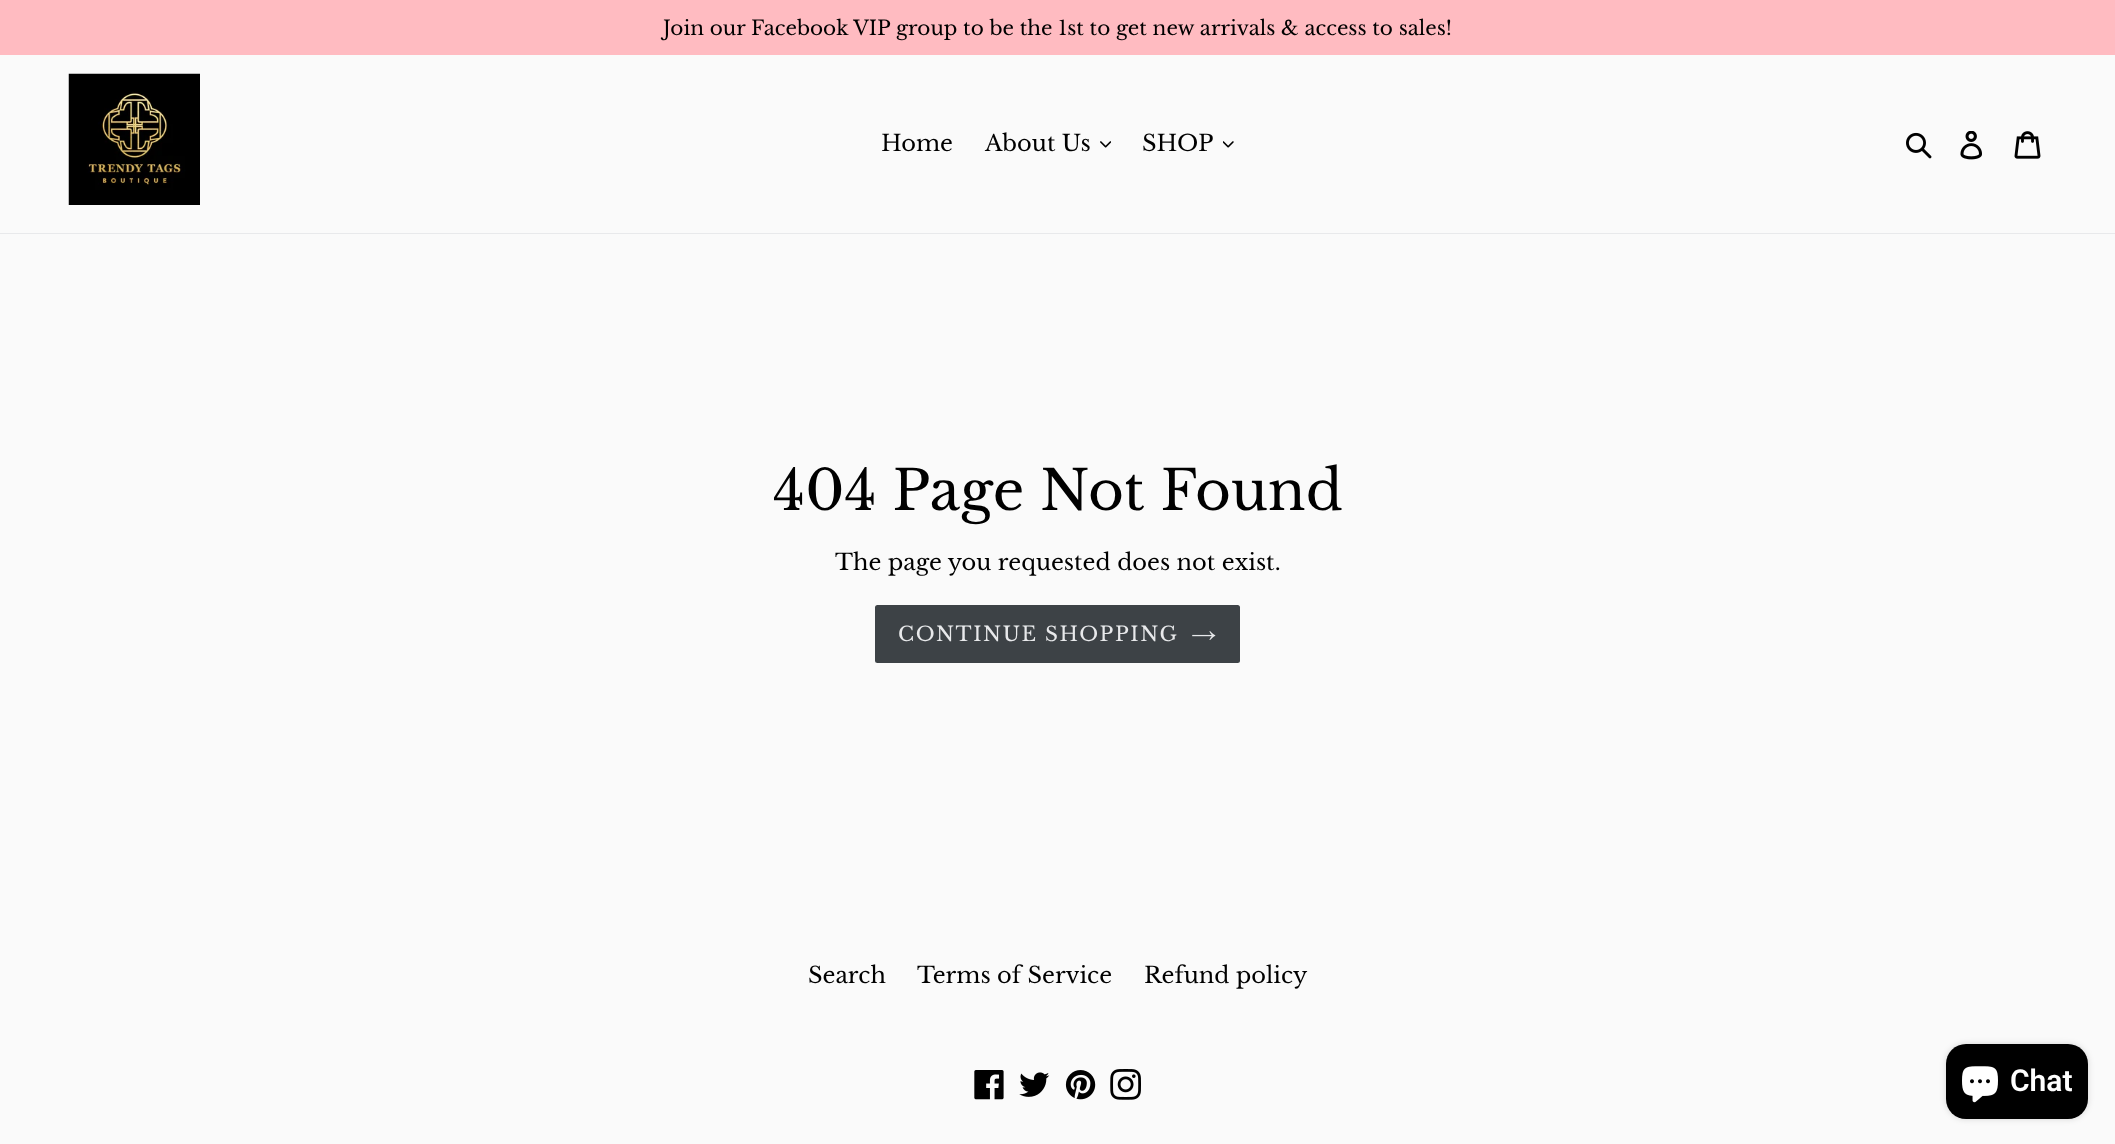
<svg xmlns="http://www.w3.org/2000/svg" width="2115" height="1144">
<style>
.a{font:20px Libre Baskerville;fill:#000}
.b{font:22.5px Libre Baskerville;fill:#000}
.c{font:55px Libre Baskerville;fill:#000}
.d{font:20px Libre Baskerville;letter-spacing:1.6px;fill:#e8e9eb}
.e{font:600 30px Roboto;fill:#fff}
</style>
<rect width="100%" height="100%" fill="#fafafa"/>
<path fill="#ffbbc1" d="M0 0h2115v55H0z"/>
<path fill="#e8e9eb" d="M0 233h2115v1H0z"/>
<image href="1.png" x="68" y="73" width="132" height="132"/>
<image href="2.png" x="1100" y="141" width="11" height="7"/>
<image href="3.png" x="1223" y="141" width="11" height="7"/>
<image href="4.png" x="1906" y="132" width="26" height="27"/>
<image href="5.png" x="1960" y="131" width="22" height="29"/>
<image href="6.png" x="2014" y="131" width="27" height="28"/>
<rect fill="#3d4246" x="875" y="605" width="365" height="58" rx="2.5"/>
<image href="7.png" x="1192" y="631" width="24" height="9"/>
<image href="8.png" x="974" y="1070" width="30" height="30"/>
<image href="9.png" x="1019" y="1072" width="31" height="25"/>
<image href="10.png" x="1065" y="1070" width="31" height="30"/>
<image href="11.png" x="1110" y="1069" width="31" height="31"/>
<rect fill="#00000026" filter="blur(3px)" x="1946" y="1044" width="142" height="75" rx="20"/>
<rect fill="#000" x="1946" y="1044" width="142" height="75" rx="20"/>
<image href="12.png" x="1962" y="1066" width="36" height="37"/>
<text class="a" x="663" y="35">Join our Facebook VIP group to be the 1st to get new arrivals &amp; access to sales!</text>
<text class="b" x="881" y="151">Home</text>
<text class="b" x="985" y="151">About Us</text>
<text class="b" x="1142" y="151">SHOP</text>
<text class="c" x="773" y="510">404 Page Not Found</text>
<text class="b" x="835" y="570">The page you requested does not exist.</text>
<text class="d" x="898" y="641">CONTINUE SHOPPING</text>
<text class="b" x="808" y="983">Search</text>
<text class="b" x="917" y="983">Terms of Service</text>
<text class="b" x="1144" y="983">Refund policy</text>
<text class="e" x="2010" y="1091">Chat</text>
</svg>
